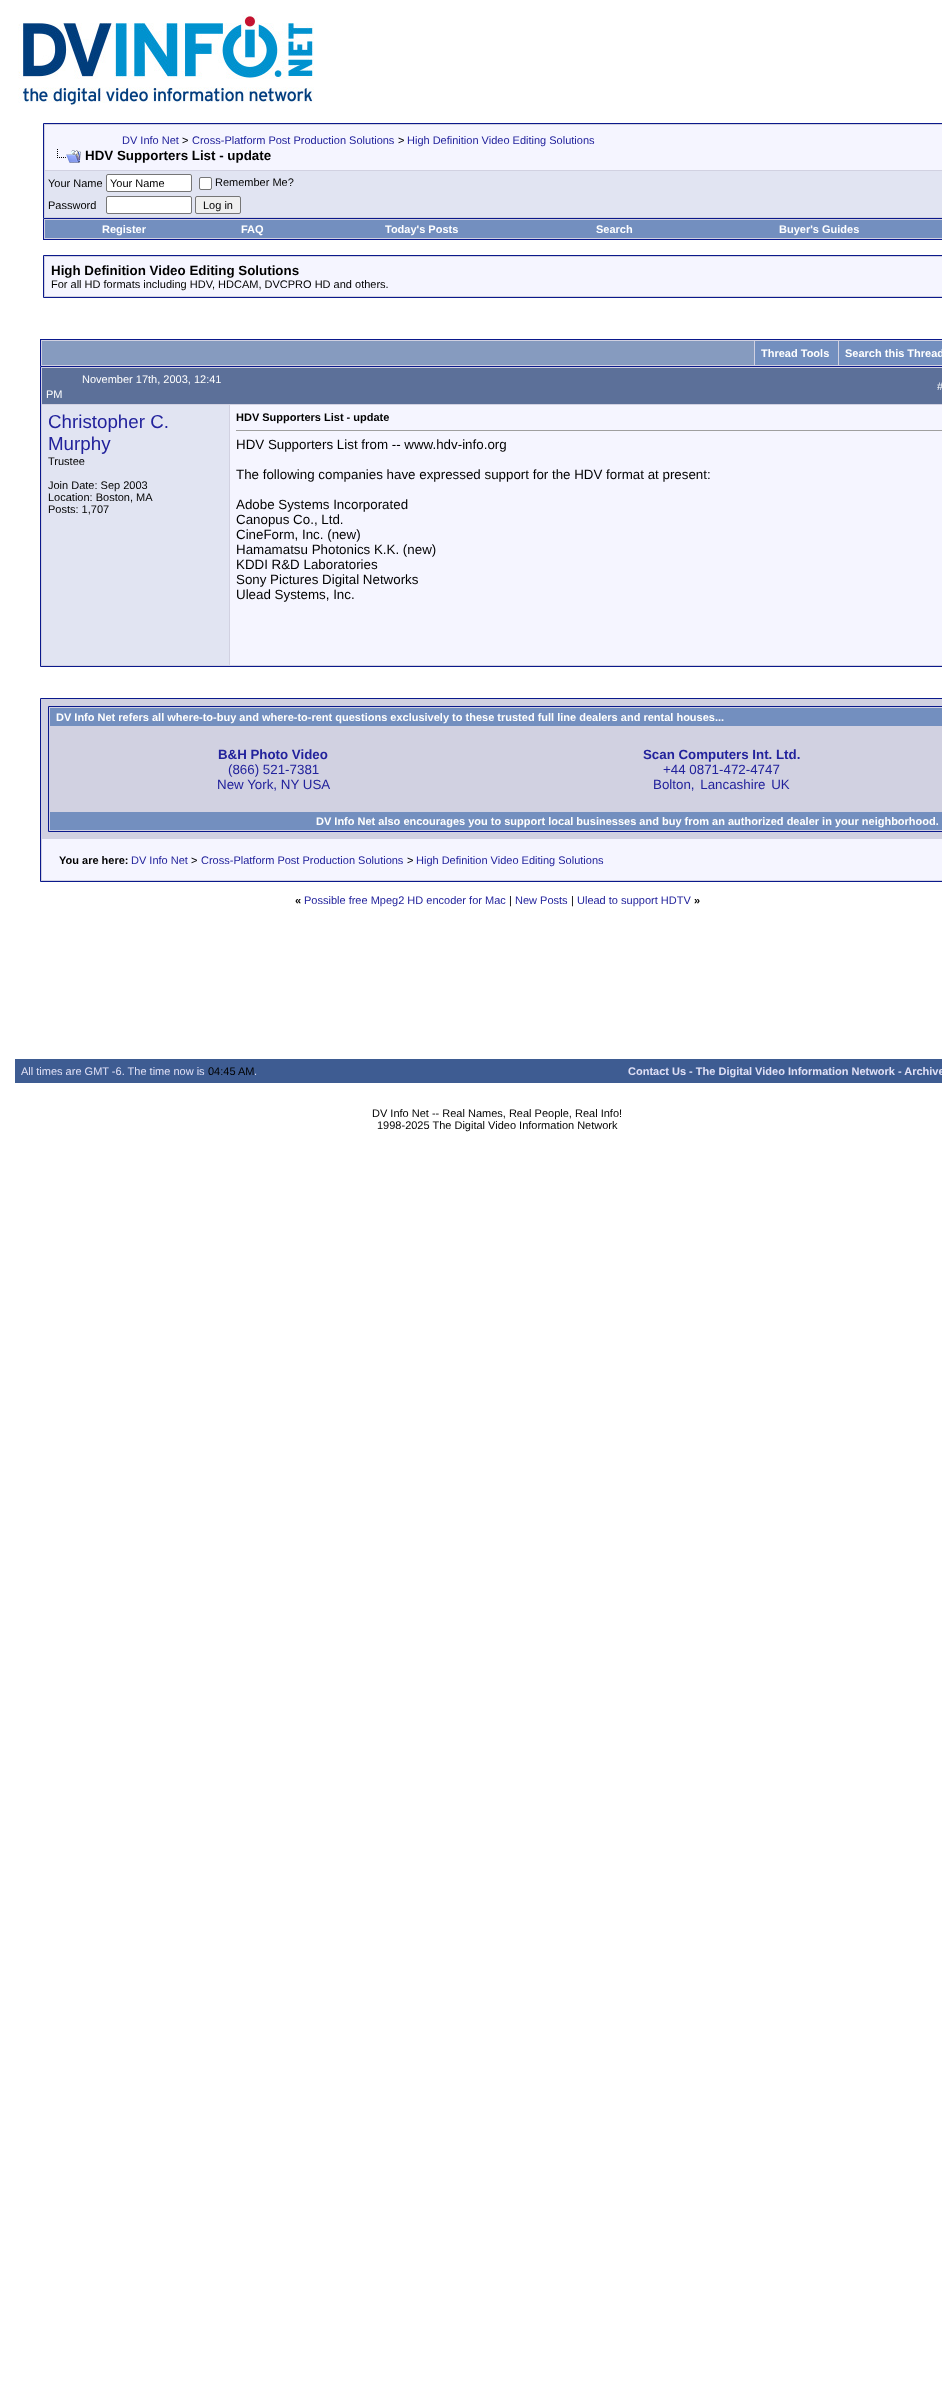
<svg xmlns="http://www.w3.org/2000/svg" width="942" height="2397">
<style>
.a{font:11px Liberation Sans;fill:#22229c}
.b{font:11px Liberation Sans;fill:#000}
.c{font:bold 13.35px Liberation Sans;fill:#000}
.d{font:bold 11px Liberation Sans;fill:#fff}
.e{font:11px Liberation Sans;fill:#fff}
.f{font:18.75px Liberation Sans;fill:#22229c}
.g{font:bold 11px Liberation Sans;fill:#000}
.h{font:13.35px Liberation Sans;fill:#000}
.i{font:bold 13.3px Liberation Sans;fill:#22229c}
.j{font:13.35px Liberation Sans;fill:#22229c}
.k{font:11px Liberation Sans;fill:#e0e0f6}
.l{font:bold 11px Liberation Sans;fill:#e0e0f6}
</style>
<rect width="100%" height="100%" fill="#fff"/>
<image href="1.png" x="18" y="15" width="296" height="90"/>
<path fill="#d1d1e1" stroke="#0b198c" d="M43.5 123.5h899v95H43.5z"/>
<path fill="#f5f5ff" d="M45 125h897v45H45z"/>
<image href="2.png" x="57" y="149" width="24" height="14"/>
<path fill="#e1e4f2" d="M45 171h897v46H45z"/>
<rect fill="#fff" stroke="#767676" x="106.5" y="174.5" width="85" height="17" rx="1.5"/>
<rect fill="#fff" stroke="#767676" x="199.5" y="177.5" width="12" height="12" rx="1.5"/>
<rect fill="#fff" stroke="#767676" x="106.5" y="196.5" width="85" height="17" rx="1.5"/>
<rect fill="#efefef" stroke="#767676" x="195.5" y="196.5" width="45" height="17" rx="1.5"/>
<path fill="#d1d1e1" d="M44 219h898v20H44z"/>
<path fill="#0b198c" d="M43 239h899v1H43z"/>
<path fill="#0b198c" d="M43 219h1v21H43z"/>
<path fill="#738fbf" d="M45 220h897v18H45z"/>
<path fill="#d1d1e1" stroke="#0b198c" d="M43.5 255.5h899v42H43.5z"/>
<path fill="#f5f5ff" d="M45 257h897v39H45z"/>
<path fill="#d1d1e1" d="M41 340h901v26H41z"/>
<path fill="#0b198c" d="M40 339h902v1H40z"/>
<path fill="#0b198c" d="M40 339h1v27H40z"/>
<path fill="#869bbf" d="M42 341h712v24H42z"/>
<path fill="#738fbf" d="M755 341h83v24H755z"/>
<path fill="#738fbf" d="M839 341h103v24H839z"/>
<path fill="none" stroke="#0b198c" d="M40.5 366.5h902v300H40.5z"/>
<path fill="#5c7099" d="M42 368h900v36H42z"/>
<path fill="#d1d1e1" d="M41 367h901v1H41z"/>
<path fill="#d1d1e1" d="M41 404h901v1H41z"/>
<path fill="#d1d1e1" d="M41 367h1v241H41z"/>
<path fill="#e1e4f2" d="M42 405h187v260H42z"/>
<path fill="#d1d1e1" d="M229 405h1v261H229z"/>
<path fill="#f5f5ff" d="M230 405h712v260H230z"/>
<path fill="#9f9f9f" d="M236 430h706v1H236z"/>
<path fill="#d1d1e1" d="M41 665h901v1H41z"/>
<path fill="#d1d1e1" d="M41 608h1v58H41z"/>
<path fill="#d1d1e1" stroke="#0b198c" d="M40.5 698.5h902v183H40.5z"/>
<path fill="none" stroke="#0b198c" d="M48.5 706.5h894v125H48.5z"/>
<path fill="#738fbf" d="M50 708h892v18H50z"/>
<path fill="#738fbf" d="M50 812h892v18H50z"/>
<path fill="#f5f5ff" d="M42 839h900v41H42z"/>
<path fill="#3e5c92" d="M15 1059h927v24H15z"/>
<text class="a" x="122" y="144">DV Info Net</text>
<text class="b" x="182" y="144">&gt;</text>
<text class="a" x="192" y="144">Cross-Platform Post Production Solutions</text>
<text class="b" x="398" y="144">&gt;</text>
<text class="a" x="407" y="144">High Definition Video Editing Solutions</text>
<text class="c" x="85" y="160">HDV Supporters List - update</text>
<text class="b" x="48" y="187">Your Name</text>
<text class="b" x="110" y="187">Your Name</text>
<text class="b" x="215" y="186">Remember Me?</text>
<text class="b" x="48" y="209">Password</text>
<text class="b" x="203" y="209">Log in</text>
<text class="d" x="102" y="233">Register</text>
<text class="d" x="241" y="233">FAQ</text>
<text class="d" x="385" y="233">Today's Posts</text>
<text class="d" x="596" y="233">Search</text>
<text class="d" x="779" y="233">Buyer's Guides</text>
<text class="c" x="51" y="275">High Definition Video Editing Solutions</text>
<text class="b" x="51" y="288">For all HD formats including HDV, HDCAM, DVCPRO HD and others.</text>
<text class="d" x="761" y="357">Thread Tools</text>
<text class="d" x="845" y="357">Search this Thread</text>
<text class="e" x="82" y="383">November 17th, 2003, 12:41</text>
<text class="e" x="46" y="398">PM</text>
<text class="e" x="937" y="390">#</text>
<text class="f" x="48" y="428">Christopher C.</text>
<text class="f" x="48" y="450">Murphy</text>
<text class="b" x="48" y="465">Trustee</text>
<text class="b" x="48" y="489">Join Date: Sep 2003</text>
<text class="b" x="48" y="501">Location: Boston, MA</text>
<text class="b" x="48" y="513">Posts: 1,707</text>
<text class="g" x="236" y="421">HDV Supporters List - update</text>
<text class="h" x="236" y="449">HDV Supporters List from -- www.hdv-info.org</text>
<text class="h" x="236" y="479">The following companies have expressed support for the HDV format at present:</text>
<text class="h" x="236" y="509">Adobe Systems Incorporated</text>
<text class="h" x="236" y="524">Canopus Co., Ltd.</text>
<text class="h" x="236" y="539">CineForm, Inc. (new)</text>
<text class="h" x="236" y="554">Hamamatsu Photonics K.K. (new)</text>
<text class="h" x="236" y="569">KDDI R&amp;D Laboratories</text>
<text class="h" x="236" y="584">Sony Pictures Digital Networks</text>
<text class="h" x="236" y="599">Ulead Systems, Inc.</text>
<text class="d" x="56" y="721">DV Info Net refers all where-to-buy and where-to-rent questions exclusively to these trusted full line dealers and rental houses...</text>
<text class="i" x="218" y="759">B&amp;H Photo Video</text>
<text class="j" x="228" y="774">(866) 521-7381</text>
<text class="j" x="217" y="789">New York, NY USA</text>
<text class="i" x="643" y="759">Scan Computers Int. Ltd.</text>
<text class="j" x="663" y="774">+44 0871-472-4747</text>
<text class="j" x="653" y="789" word-spacing="2">Bolton, Lancashire UK</text>
<text class="d" x="316" y="825">DV Info Net also encourages you to support local businesses and buy from an authorized dealer in your neighborhood.</text>
<text class="g" x="59" y="864">You are here:</text>
<text class="a" x="131" y="864">DV Info Net</text>
<text class="b" x="191" y="864">&gt;</text>
<text class="a" x="201" y="864">Cross-Platform Post Production Solutions</text>
<text class="b" x="407" y="864">&gt;</text>
<text class="a" x="416" y="864">High Definition Video Editing Solutions</text>
<text class="g" x="295" y="904">«</text>
<text class="a" x="304" y="904">Possible free Mpeg2 HD encoder for Mac</text>
<text class="b" x="509" y="904">|</text>
<text class="a" x="515" y="904">New Posts</text>
<text class="b" x="571" y="904">|</text>
<text class="a" x="577" y="904">Ulead to support HDTV</text>
<text class="g" x="694" y="904">»</text>
<text class="k" x="21" y="1075">All times are GMT -6. The time now is</text>
<text class="b" x="208" y="1075">04:45 AM</text>
<text class="k" x="254" y="1075">.</text>
<text class="l" x="628" y="1075">Contact Us - The Digital Video Information Network - Archive</text>
<text class="b" x="372" y="1117">DV Info Net -- Real Names, Real People, Real Info!</text>
<text class="b" x="377" y="1129">1998-2025 The Digital Video Information Network</text>
</svg>
